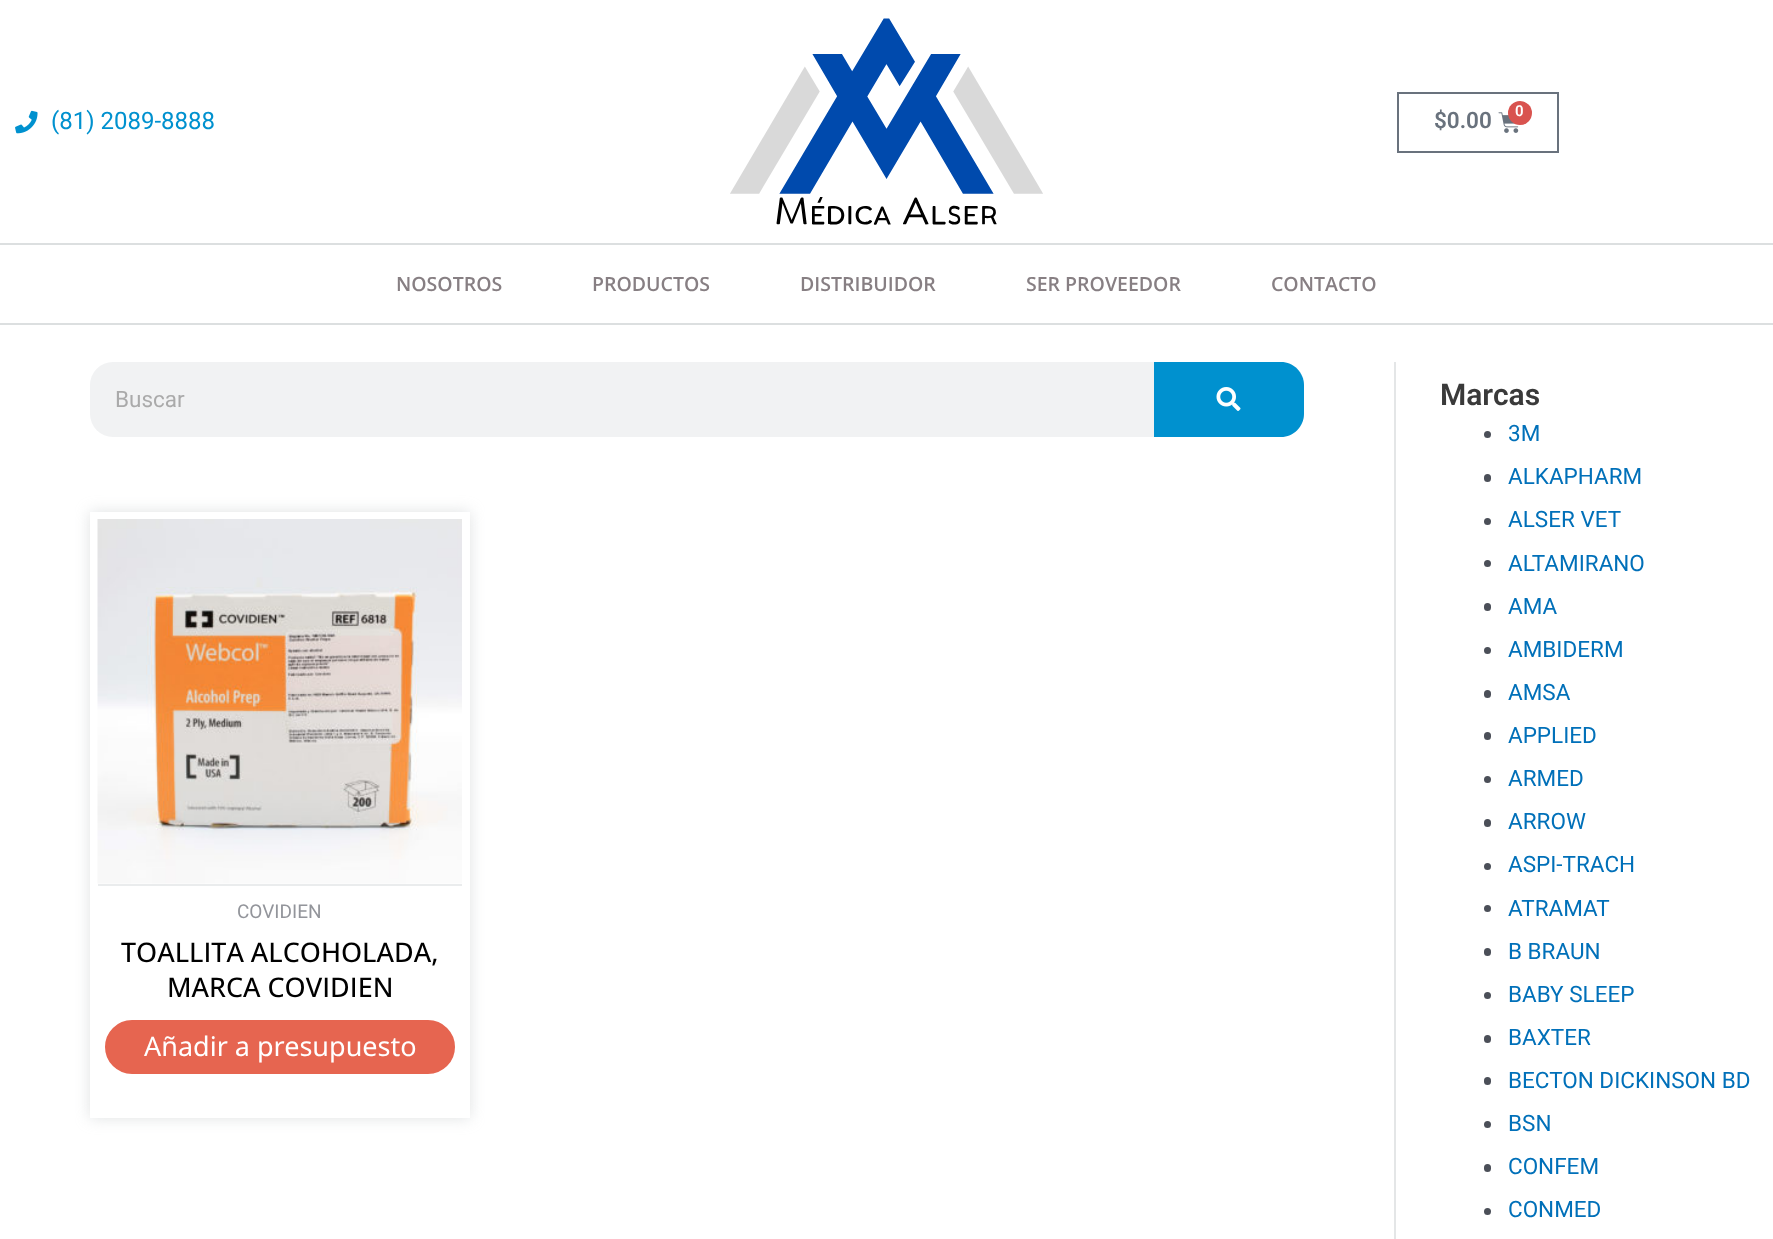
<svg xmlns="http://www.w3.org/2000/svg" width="1773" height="1239">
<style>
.a{font:24px Roboto;fill:#0091cf}
.b{font:600 22.5px Roboto;fill:#69727d}
.c{font:600 15px Roboto;fill:#fff}
.d{font:600 19.5px Open Sans;fill:#877f83}
.e{font:22.5px Roboto;fill:#aaa}
.f{font:19px Roboto;fill:#93959b}
.g{font:500 27px Open Sans;fill:#000}
.h{font:27px Noto Sans;fill:#fff}
.i{font:600 30px Roboto;fill:#3a3a3a}
.j{font:22.5px Roboto;fill:#0170b9}
</style>
<rect width="100%" height="100%" fill="#fff"/>
<image href="1.png" x="15" y="110" width="23" height="24"/>
<image href="2.png" x="730" y="18" width="313" height="207"/>
<path fill="none" stroke="#69727d" stroke-width="2" d="M1398 93h160v59H1398z"/>
<image href="3.png" x="1498" y="112" width="21" height="21"/>
<circle fill="#d9534f" cx="1520" cy="113" r="12"/>
<path fill="#dcdfe0" d="M0 243h1773v2H0z"/>
<path fill="#dcdfe0" d="M0 323h1773v2H0z"/>
<path fill="#e4e6e7" d="M1394 362h2v877H1394z"/>
<rect fill="#f1f2f3" x="90" y="362" width="1214" height="75" rx="23"/>
<path fill="#0091cf" d="M1154 362h127c12.5 0 23 10.5 23 23v29c0 12.5-10.5 23-23 23h-127z"/>
<image href="4.png" x="1216" y="387" width="25" height="24"/>
<path fill="#b3b9bc6b" filter="blur(7.5px)" d="M90 512h380v606H90z"/>
<path fill="#fff" d="M90 512h380v606H90z"/>
<path fill="#eaeced" d="M98 884h364v2H98z"/>
<image href="5.png" x="97" y="519" width="365" height="365"/>
<rect fill="#e66550" stroke="#e66550" stroke-width="2" x="106" y="1021" width="348" height="52" rx="26"/>
<circle fill="#4b4f58" cx="1487.5" cy="434.5" r="3.5"/>
<rect fill="#4b4f58" x="1484" y="474" width="7" height="8" rx="3.5"/>
<circle fill="#4b4f58" cx="1487.5" cy="521.5" r="3.5"/>
<circle fill="#4b4f58" cx="1487.5" cy="563.5" r="3.5"/>
<rect fill="#4b4f58" x="1484" y="603" width="7" height="8" rx="3.5"/>
<circle fill="#4b4f58" cx="1487.5" cy="650.5" r="3.5"/>
<rect fill="#4b4f58" x="1484" y="690" width="7" height="8" rx="3.5"/>
<rect fill="#4b4f58" x="1484" y="732" width="7" height="8" rx="3.5"/>
<circle fill="#4b4f58" cx="1487.5" cy="779.5" r="3.5"/>
<rect fill="#4b4f58" x="1484" y="819" width="7" height="8" rx="3.5"/>
<circle fill="#4b4f58" cx="1487.5" cy="866.5" r="3.5"/>
<circle fill="#4b4f58" cx="1487.5" cy="908.5" r="3.5"/>
<rect fill="#4b4f58" x="1484" y="948" width="7" height="8" rx="3.5"/>
<circle fill="#4b4f58" cx="1487.5" cy="995.5" r="3.5"/>
<rect fill="#4b4f58" x="1484" y="1035" width="7" height="8" rx="3.5"/>
<rect fill="#4b4f58" x="1484" y="1077" width="7" height="8" rx="3.5"/>
<circle fill="#4b4f58" cx="1487.5" cy="1124.5" r="3.5"/>
<rect fill="#4b4f58" x="1484" y="1164" width="7" height="8" rx="3.5"/>
<circle fill="#4b4f58" cx="1487.5" cy="1211.5" r="3.5"/>
<text class="a" x="51" y="129">(81) 2089-8888</text>
<text class="b" x="1434" y="128">$0.00</text>
<text class="c" x="1515" y="116">0</text>
<text class="d" x="396" y="291">NOSOTROS</text>
<text class="d" x="592" y="291">PRODUCTOS</text>
<text class="d" x="800" y="291">DISTRIBUIDOR</text>
<text class="d" x="1026" y="291">SER PROVEEDOR</text>
<text class="d" x="1271" y="291">CONTACTO</text>
<text class="e" x="115" y="407">Buscar</text>
<text class="f" x="237" y="918">COVIDIEN</text>
<text class="g" x="121" y="962">TOALLITA ALCOHOLADA,</text>
<text class="g" x="167" y="997">MARCA COVIDIEN</text>
<text class="h" x="144" y="1056">Añadir a presupuesto</text>
<text class="i" x="1440" y="405">Marcas</text>
<text class="j" x="1508" y="441">3M</text>
<text class="j" x="1508" y="484">ALKAPHARM</text>
<text class="j" x="1508" y="527">ALSER VET</text>
<text class="j" x="1508" y="571">ALTAMIRANO</text>
<text class="j" x="1508" y="614">AMA</text>
<text class="j" x="1508" y="657">AMBIDERM</text>
<text class="j" x="1508" y="700">AMSA</text>
<text class="j" x="1508" y="743">APPLIED</text>
<text class="j" x="1508" y="786">ARMED</text>
<text class="j" x="1508" y="829">ARROW</text>
<text class="j" x="1508" y="872">ASPI-TRACH</text>
<text class="j" x="1508" y="916">ATRAMAT</text>
<text class="j" x="1508" y="959">B BRAUN</text>
<text class="j" x="1508" y="1002">BABY SLEEP</text>
<text class="j" x="1508" y="1045">BAXTER</text>
<text class="j" x="1508" y="1088">BECTON DICKINSON BD</text>
<text class="j" x="1508" y="1131">BSN</text>
<text class="j" x="1508" y="1174">CONFEM</text>
<text class="j" x="1508" y="1217">CONMED</text>
</svg>
